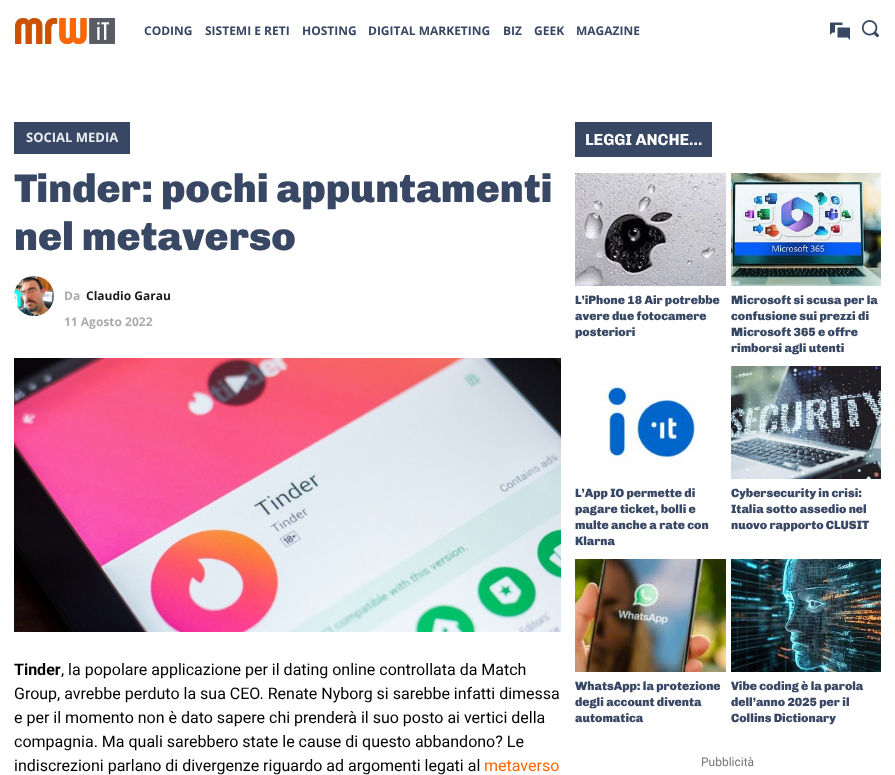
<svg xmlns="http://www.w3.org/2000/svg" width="895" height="775">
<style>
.a{font:bold 12px Open Sans;fill:#384764}
.b{font:bold 13px Open Sans;fill:#ebedf0}
.c{font:900 40px Chivo;fill:#384764}
.d{font:bold 12px Open Sans;fill:#aaa}
.e{font:bold 12px Open Sans;fill:#1a1a1a}
.f{font:bold 16px Roboto;fill:#000}
.g{font:16px Roboto;fill:#000}
.h{font:16px Roboto;fill:#f60}
.i{font:bold 16px Chivo;fill:#fff}
.j{font:900 12px Chivo;fill:#384764}
.k{font:12px Roboto;fill:#767676}
</style>
<rect width="100%" height="100%" fill="#fff"/>
<image href="1.png" x="15" y="18" width="100" height="26"/>
<image href="2.png" x="830" y="22" width="20" height="18"/>
<image href="3.png" x="861" y="20" width="18" height="18"/>
<path fill="#384764" d="M14 122h116v32H14z"/>
<image href="4.png" x="14" y="276" width="40" height="40"/>
<image href="5.png" x="14" y="358" width="547" height="274"/>
<path fill="#384764" d="M575 122h137v35H575z"/>
<image href="6.png" x="575" y="173" width="151" height="113"/>
<image href="7.png" x="731" y="173" width="150" height="113"/>
<image href="8.png" x="598" y="378" width="97" height="85"/>
<image href="9.png" x="731" y="366" width="150" height="113"/>
<image href="10.png" x="575" y="559" width="151" height="113"/>
<image href="11.png" x="731" y="559" width="150" height="113"/>
<text class="a" x="144" y="35">CODING</text>
<text class="a" x="205" y="35">SISTEMI E RETI</text>
<text class="a" x="302" y="35">HOSTING</text>
<text class="a" x="368" y="35">DIGITAL MARKETING</text>
<text class="a" x="503" y="35">BIZ</text>
<text class="a" x="534" y="35">GEEK</text>
<text class="a" x="576" y="35">MAGAZINE</text>
<text class="b" x="26" y="142">SOCIAL MEDIA</text>
<text class="c" x="14" y="202">Tinder: pochi appuntamenti</text>
<text class="c" x="14" y="250">nel metaverso</text>
<text class="d" x="64" y="300">Da</text>
<text class="e" x="86" y="300">Claudio Garau</text>
<text class="d" x="64" y="326">11 Agosto 2022</text>
<text class="f" x="14" y="675">Tinder</text>
<text class="g" x="61" y="675">, la popolare applicazione per il dating online controllata da Match</text>
<text class="g" x="14" y="699">Group, avrebbe perduto la sua CEO. Renate Nyborg si sarebbe infatti dimessa</text>
<text class="g" x="14" y="723">e per il momento non è dato sapere chi prenderà il suo posto ai vertici della</text>
<text class="g" x="14" y="747">compagnia. Ma quali sarebbero state le cause di questo abbandono? Le</text>
<text class="g" x="14" y="771">indiscrezioni parlano di divergenze riguardo ad argomenti legati al</text>
<text class="h" x="484" y="771">metaverso</text>
<text class="i" x="585" y="145">LEGGI ANCHE...</text>
<text class="j" x="575" y="304">L’iPhone 18 Air potrebbe</text>
<text class="j" x="575" y="320">avere due fotocamere</text>
<text class="j" x="575" y="336">posteriori</text>
<text class="j" x="731" y="304">Microsoft si scusa per la</text>
<text class="j" x="731" y="320">confusione sui prezzi di</text>
<text class="j" x="731" y="336">Microsoft 365 e offre</text>
<text class="j" x="731" y="352">rimborsi agli utenti</text>
<text class="j" x="575" y="497">L’App IO permette di</text>
<text class="j" x="575" y="513">pagare ticket, bolli e</text>
<text class="j" x="575" y="529">multe anche a rate con</text>
<text class="j" x="575" y="545">Klarna</text>
<text class="j" x="731" y="497">Cybersecurity in crisi:</text>
<text class="j" x="731" y="513">Italia sotto assedio nel</text>
<text class="j" x="731" y="529">nuovo rapporto CLUSIT</text>
<text class="j" x="575" y="690">WhatsApp: la protezione</text>
<text class="j" x="575" y="706">degli account diventa</text>
<text class="j" x="575" y="722">automatica</text>
<text class="j" x="731" y="690">Vibe coding è la parola</text>
<text class="j" x="731" y="706">dell’anno 2025 per il</text>
<text class="j" x="731" y="722">Collins Dictionary</text>
<text class="k" x="701" y="766">Pubblicità</text>
</svg>
